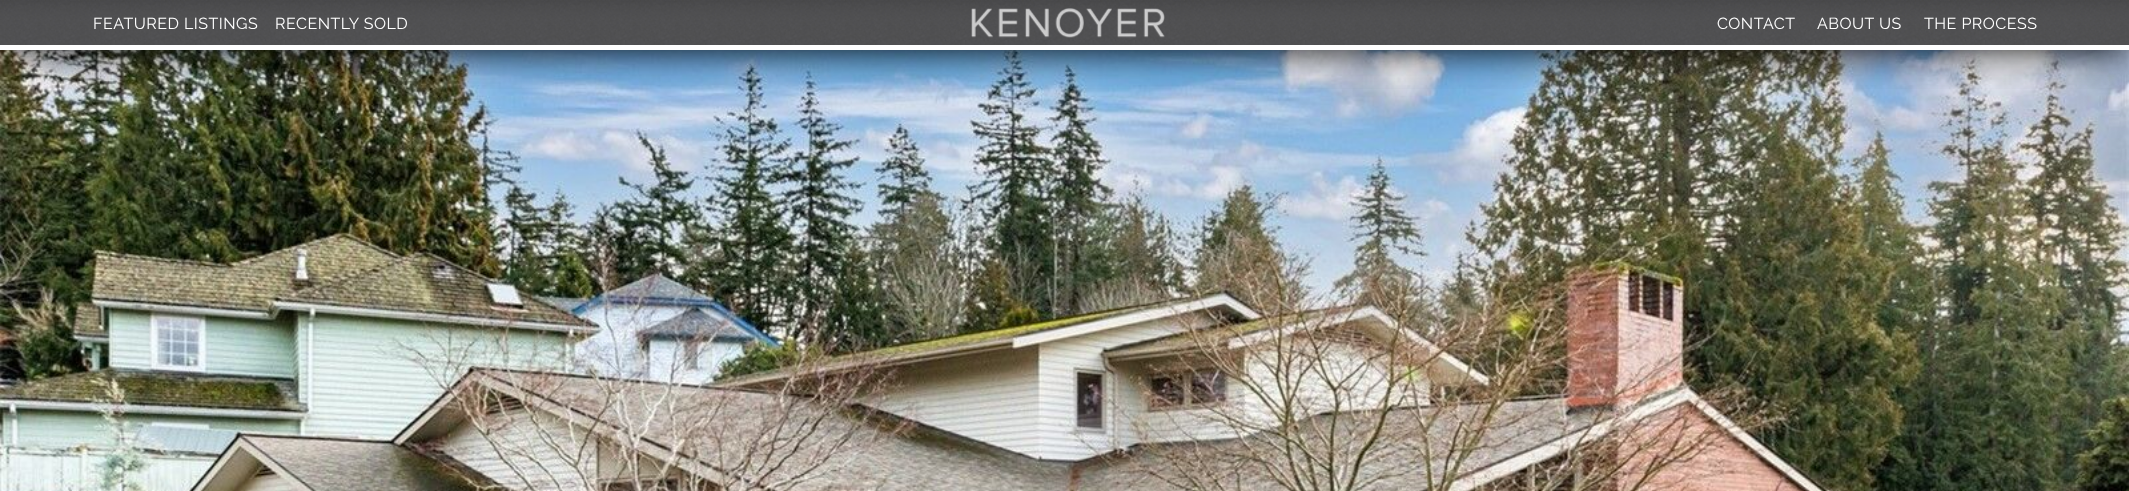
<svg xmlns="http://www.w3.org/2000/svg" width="2129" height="491">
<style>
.a{font:16px Raleway;letter-spacing:0.5px;fill:#fff}
</style>
<defs>
<clipPath id="clip1"><path d="M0 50h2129v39H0z"/></clipPath>
</defs>
<rect width="100%" height="100%" fill="#fff"/>
<image href="1.png" x="0" y="0" width="2129" height="2"/>
<image href="4.png" x="0" y="50" width="2129" height="441"/>
<g clip-path="url(#clip1)">
<path fill="#000" filter="blur(19px)" d="M0 0h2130v50H0z"/>
</g>
<image href="2.png" x="0" y="0" width="2129" height="45"/>
<image href="3.png" x="971" y="8" width="194" height="30"/>
<text class="a" x="93" y="29">FEATURED LISTINGS</text>
<text class="a" x="275" y="29">RECENTLY SOLD</text>
<text class="a" x="1717" y="29">CONTACT</text>
<text class="a" x="1817" y="29">ABOUT US</text>
<text class="a" x="1924" y="29">THE PROCESS</text>
</svg>
